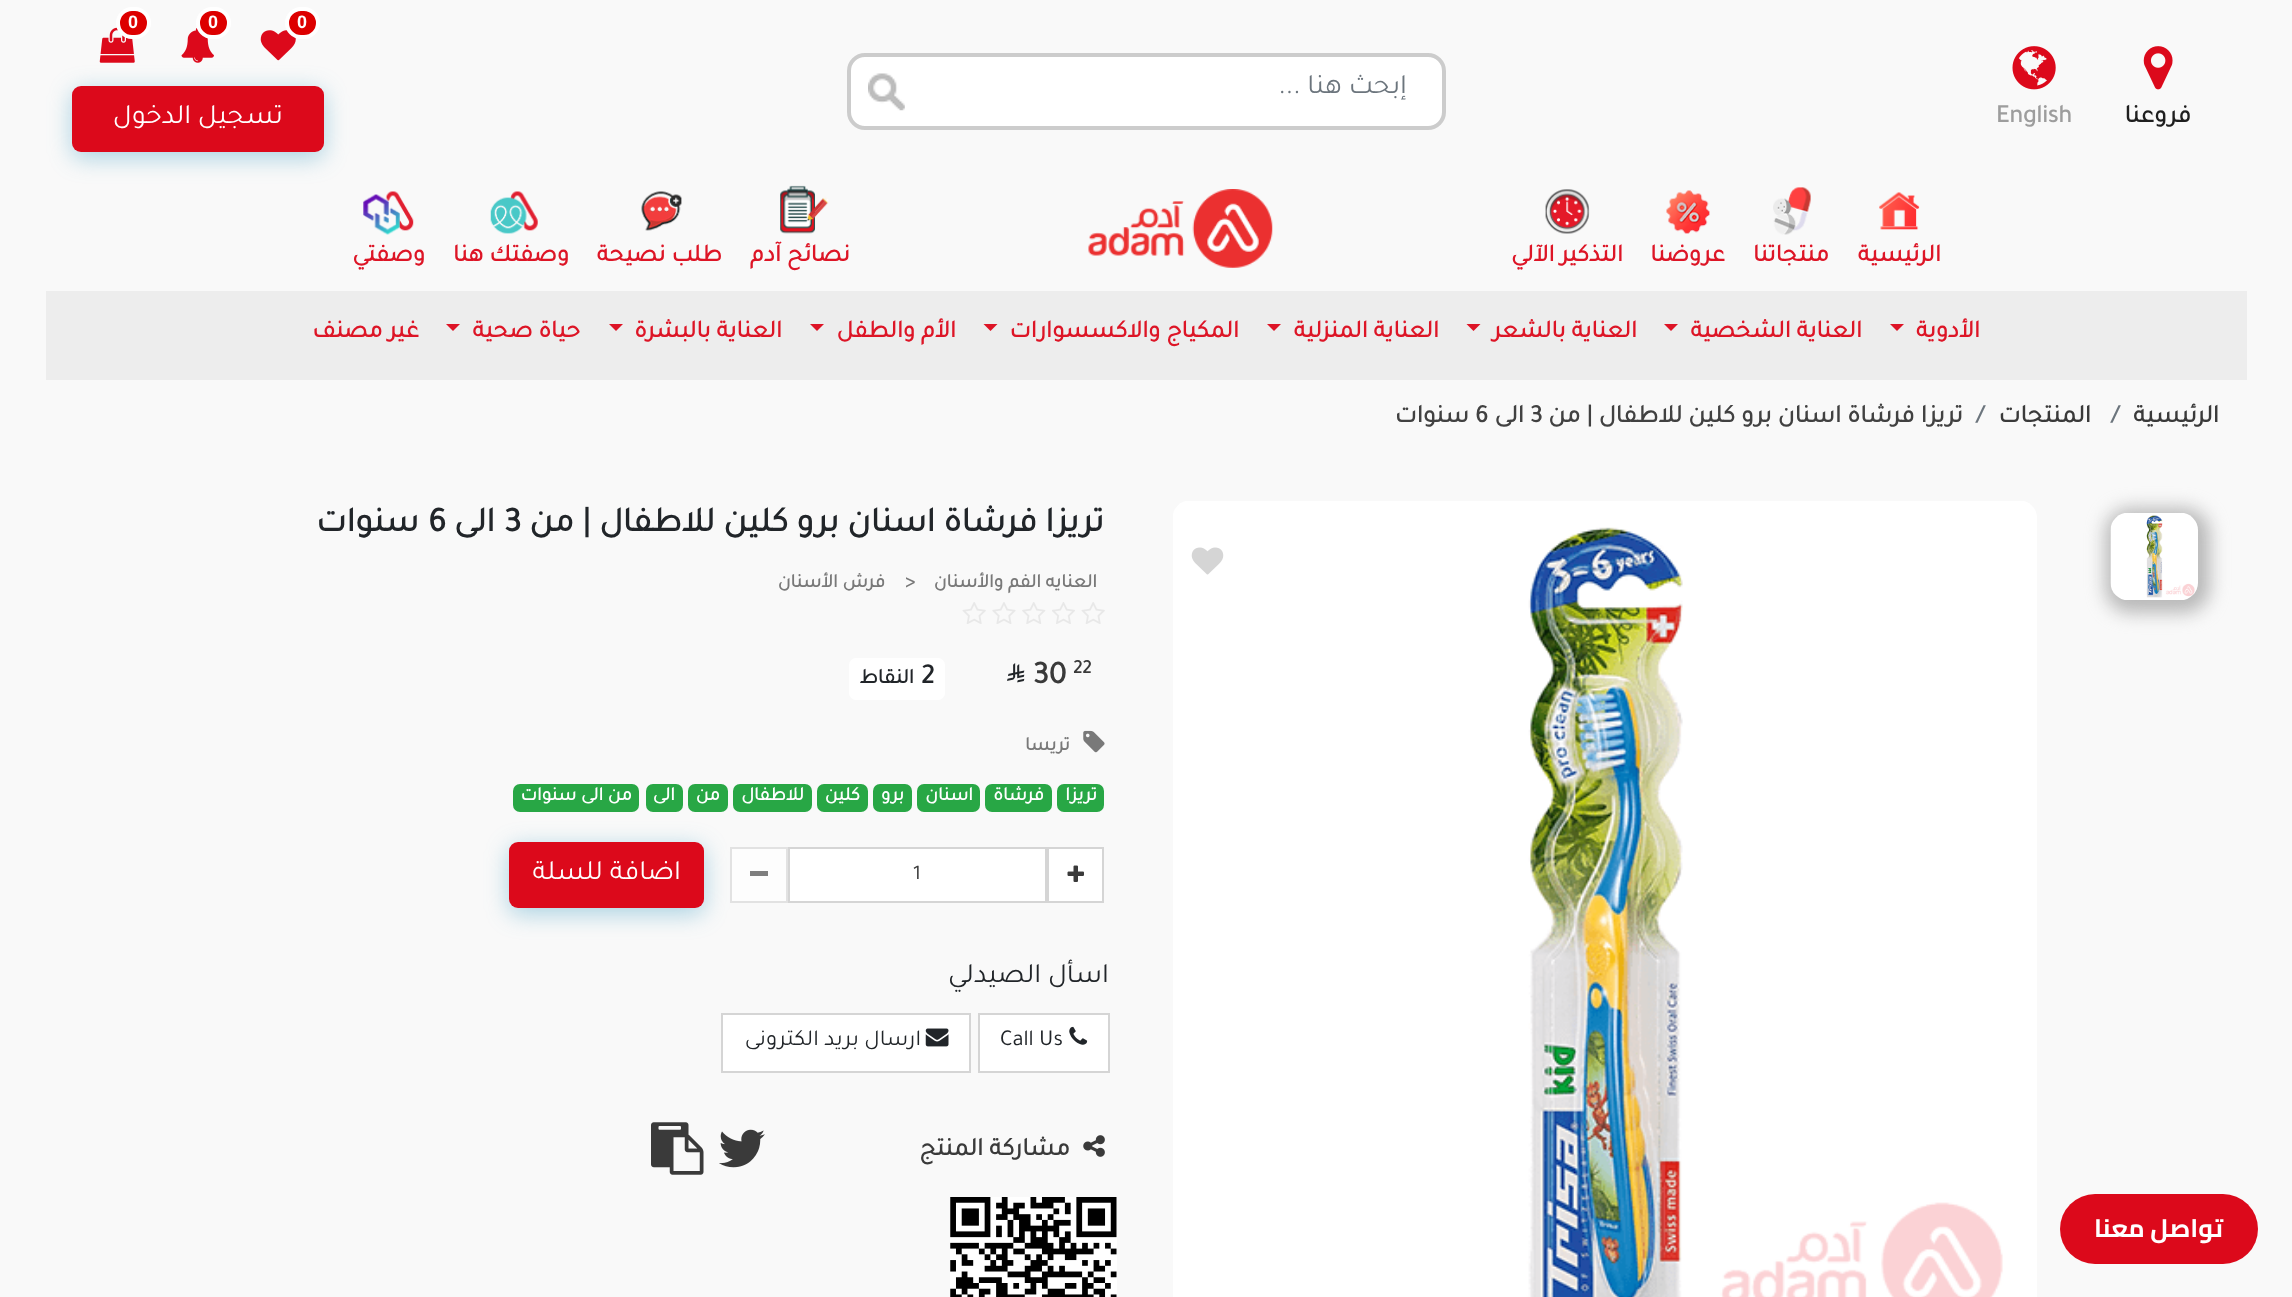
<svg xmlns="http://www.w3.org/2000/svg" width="2292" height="1297">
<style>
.a{font:28px Tajawal;direction:rtl;fill:#6c757d}
.b{font:bold 18px Liberation Sans;fill:#fff}
.c{font:28px Tajawal;direction:rtl;fill:#fff}
.d{font:bold 25.25px Tajawal;direction:rtl;fill:#1f1f1f}
.e{font:bold 25.25px Tajawal;fill:#9d9d9d}
.f{font:bold 24.5px Tajawal;direction:rtl;fill:#dd1526}
.g{font:bold 25.25px Tajawal;direction:rtl;fill:#3a3a3a}
.h{font:bold 25.25px Tajawal;fill:#6c757d}
.i{font:bold 25.25px Tajawal;direction:rtl;fill:#414141}
.j{font:bold 25.25px Tajawal;fill:#414141}
.k{font:bold 35px Tajawal;direction:rtl;fill:#212529}
.l{font:bold 35px Tajawal;fill:#212529}
.m{font:bold 19.25px Tajawal;direction:rtl;fill:#797979}
.n{font:bold 19.25px Tajawal;fill:#797979}
.o{font:bold 19.25px Tajawal;fill:#3a3a3a}
.p{font:bold 32px Tajawal;fill:#3a3a3a}
.q{font:bold 28px Tajawal;fill:#212529}
.r{font:bold 21px Tajawal;direction:rtl;fill:#212529}
.s{font:bold 19px Tajawal;direction:rtl;fill:#fff}
.t{font:21px Tajawal;fill:#3a3a3a}
.u{font:28px Tajawal;direction:rtl;fill:#212529}
.v{font:22.75px Tajawal;fill:#212529}
.w{font:22.75px Tajawal;direction:rtl;fill:#212529}
.x{font:bold 25.25px Cairo;direction:rtl;fill:#fff}
</style>
<rect width="100%" height="100%" fill="#f9f9f9"/>
<rect fill="#fff" x="851" y="56" width="591" height="70" rx="14"/>
<image href="1.png" x="868" y="73" width="37" height="38"/>
<rect fill="none" stroke="#ccc" stroke-width="4" x="849" y="55" width="595" height="73" rx="16"/>
<image href="2.png" x="260" y="30" width="36" height="31"/>
<rect fill="#d00" stroke="#fff" stroke-width="4" x="287" y="9" width="31" height="28" rx="14"/>
<image href="3.png" x="181" y="28" width="33" height="35"/>
<rect fill="#d00" stroke="#fff" stroke-width="4" x="198" y="9" width="31" height="28" rx="14"/>
<image href="4.png" x="99" y="27" width="36" height="36"/>
<rect fill="#d00" stroke="#fff" stroke-width="4" x="118" y="9" width="31" height="28" rx="14"/>
<rect fill="#2a92bd61" filter="blur(11.5px)" x="72" y="91" width="252" height="67" rx="9"/>
<rect fill="#dc091b" x="72" y="86" width="252" height="66" rx="9"/>
<image href="5.png" x="2143" y="46" width="30" height="44"/>
<image href="6.png" x="2012" y="46" width="44" height="44"/>
<image href="7.png" x="1879" y="192" width="41" height="38"/>
<image href="8.png" x="1773" y="187" width="38" height="48"/>
<image href="9.png" x="1666" y="190" width="44" height="44"/>
<image href="10.png" x="1545" y="189" width="45" height="45"/>
<image href="11.png" x="1088" y="189" width="185" height="79"/>
<image href="12.png" x="780" y="185" width="49" height="49"/>
<image href="13.png" x="641" y="191" width="41" height="40"/>
<image href="14.png" x="490" y="191" width="48" height="43"/>
<image href="15.png" x="363" y="191" width="51" height="44"/>
<path fill="#ededed" d="M46 291h2201v89H46z"/>
<path fill="#dd1426" d="M1890 324h14l-7 7z"/>
<path fill="#dd1426" d="M1664 324h14l-7 7z"/>
<path fill="#dd1426" d="M1466.5 324h14l-7 7z"/>
<path fill="#dd1426" d="M1267 324h14l-7 7z"/>
<path fill="#dd1426" d="M983.5 324h14l-7 7z"/>
<path fill="#dd1426" d="M810 324h14l-7 7z"/>
<path fill="#dd1426" d="M609 324h14l-7 7z"/>
<path fill="#dd1426" d="M446 324h14l-7 7z"/>
<rect fill="#b8b8b8" filter="blur(9px)" x="2105" y="508" width="105" height="105" rx="26"/>
<image href="16.png" x="2110" y="513" width="88" height="87"/>
<image href="17.png" x="1173" y="501" width="864" height="796"/>
<image href="18.png" x="1191" y="547" width="33" height="28"/>
<image href="19.png" x="1081" y="602" width="24" height="22"/>
<image href="20.png" x="1052" y="602" width="23" height="22"/>
<image href="21.png" x="1022" y="602" width="24" height="22"/>
<image href="22.png" x="992" y="602" width="24" height="22"/>
<image href="19.png" x="962" y="602" width="24" height="22"/>
<image href="23.png" x="1007" y="663" width="18" height="20"/>
<rect fill="#fff" x="849" y="658" width="96" height="42" rx="7"/>
<image href="24.png" x="1083" y="730" width="22" height="23"/>
<rect fill="#28a745" x="1057" y="784" width="47" height="28" rx="7"/>
<rect fill="#28a745" x="985" y="784" width="67" height="28" rx="7"/>
<rect fill="#28a745" x="917" y="784" width="63" height="28" rx="7"/>
<rect fill="#28a745" x="873" y="784" width="39" height="28" rx="7"/>
<rect fill="#28a745" x="817" y="784" width="51" height="28" rx="7"/>
<rect fill="#28a745" x="733" y="784" width="79" height="28" rx="7"/>
<rect fill="#28a745" x="688" y="784" width="40" height="28" rx="7"/>
<rect fill="#28a745" x="646" y="784" width="37" height="28" rx="7"/>
<rect fill="#28a745" x="513" y="784" width="126" height="28" rx="7"/>
<path fill="#fff" stroke="#d5d5d5" stroke-width="2" d="M1048 848h55v54H1048z"/>
<image href="25.png" x="1067" y="865" width="17" height="17"/>
<path fill="#fff" stroke="#d5d5d5" stroke-width="2" d="M789 848h257v54H789z"/>
<path fill="#fdfdfd" stroke="#e2e2e2" stroke-width="2" d="M731 848h56v54H731z"/>
<path fill="#7e7e7e" d="M750 871h18v5H750z"/>
<rect fill="#2a92bd61" filter="blur(11.5px)" x="509" y="847" width="195" height="67" rx="9"/>
<rect fill="#dc091b" x="509" y="842" width="195" height="66" rx="9"/>
<path fill="#fff" stroke="#d5d5d5" stroke-width="2" d="M979 1014h130v58H979z"/>
<image href="26.png" x="1069" y="1026" width="19" height="19"/>
<path fill="#fff" stroke="#d5d5d5" stroke-width="2" d="M722 1014h248v58H722z"/>
<image href="27.png" x="925" y="1028" width="24" height="19"/>
<image href="28.png" x="1083" y="1135" width="22" height="22"/>
<image href="29.png" x="719" y="1129" width="46" height="39"/>
<image href="30.png" x="651" y="1122" width="53" height="53"/>
<image href="31.png" x="950" y="1197" width="167" height="100"/>
<rect fill="#dc091b" x="2060" y="1194" width="198" height="70" rx="35"/>
<text class="a" x="1407" y="93">إبحث هنا ...</text>
<text class="b" x="297" y="28">0</text>
<text class="b" x="208" y="28">0</text>
<text class="b" x="128" y="28">0</text>
<text class="c" x="283" y="123">تسجيل الدخول</text>
<text class="d" x="2191" y="122">فروعنا</text>
<text class="e" x="1996" y="122">English</text>
<text class="f" x="1941" y="261">الرئيسية</text>
<text class="f" x="1829" y="261">منتجاتنا</text>
<text class="f" x="1725" y="261">عروضنا</text>
<text class="f" x="1623" y="261">التذكير الآلي</text>
<text class="f" x="850" y="261">نصائح آدم</text>
<text class="f" x="722" y="261">طلب نصيحة</text>
<text class="f" x="569" y="261">وصفتك هنا</text>
<text class="f" x="425" y="261">وصفتي</text>
<text class="f" x="1980" y="337">الأدوية</text>
<text class="f" x="1862" y="337">العناية الشخصية</text>
<text class="f" x="1637" y="337">العناية بالشعر</text>
<text class="f" x="1439" y="337">العناية المنزلية</text>
<text class="f" x="1239" y="337">المكياج والاكسسوارات</text>
<text class="f" x="956" y="337">الأم والطفل</text>
<text class="f" x="782" y="337">العناية بالبشرة</text>
<text class="f" x="580" y="337">حياة صحية</text>
<text class="f" x="419" y="337">غير مصنف</text>
<text class="g" x="2219" y="422">الرئيسية</text>
<text class="h" x="2111" y="422">/</text>
<text class="g" x="2091" y="422">المنتجات</text>
<text class="h" x="1976" y="422">/</text>
<text class="i" x="1963" y="422">تريزا فرشاة اسنان برو كلين للاطفال | من</text>
<text class="j" x="1530" y="422">3</text>
<text class="i" x="1524" y="422">الى</text>
<text class="j" x="1475" y="422">6</text>
<text class="i" x="1469" y="422">سنوات</text>
<text class="k" x="1104" y="531">تريزا فرشاة اسنان برو كلين للاطفال | من</text>
<text class="l" x="504" y="531">3</text>
<text class="k" x="495" y="531">الى</text>
<text class="l" x="428" y="531">6</text>
<text class="k" x="419" y="531">سنوات</text>
<text class="m" x="1097" y="587">العنايه الفم والأسنان</text>
<text class="n" x="905" y="587">&gt;</text>
<text class="m" x="885" y="587">فرش الأسنان</text>
<text class="o" x="1073" y="673">22</text>
<text class="p" x="1033" y="683">30</text>
<text class="q" x="921" y="683">2</text>
<text class="r" x="914" y="683">النقاط</text>
<text class="m" x="1070" y="750">تريسا</text>
<text class="s" x="1097" y="800">تريزا</text>
<text class="s" x="1044" y="800">فرشاة</text>
<text class="s" x="973" y="800">اسنان</text>
<text class="s" x="904" y="800">برو</text>
<text class="s" x="860" y="800">كلين</text>
<text class="s" x="804" y="800">للاطفال</text>
<text class="s" x="720" y="800">من</text>
<text class="s" x="675" y="800">الى</text>
<text class="s" x="632" y="800">من الى سنوات</text>
<text class="t" x="913" y="879">1</text>
<text class="c" x="681" y="879">اضافة للسلة</text>
<text class="u" x="1109" y="982">اسأل الصيدلي</text>
<text class="v" x="1000" y="1045">Call Us</text>
<text class="w" x="921" y="1045">ارسال بريد الكترونى</text>
<text class="g" x="1070" y="1155">مشاركة المنتج</text>
<text class="x" x="2223" y="1237">تواصل معنا</text>
</svg>
